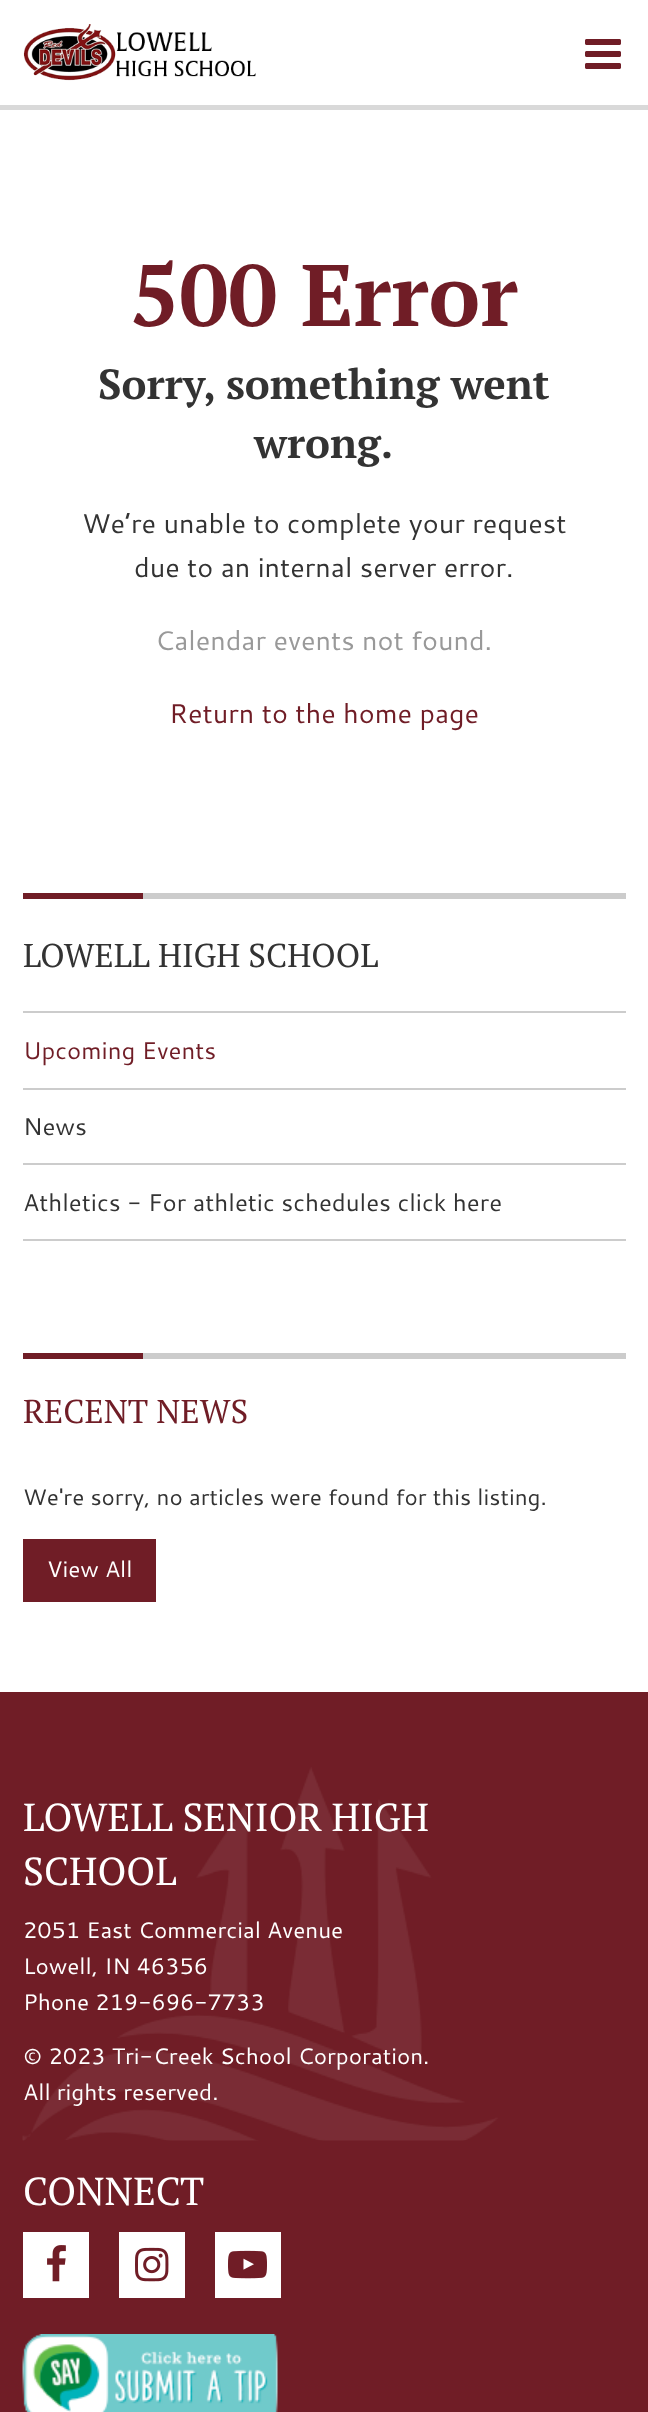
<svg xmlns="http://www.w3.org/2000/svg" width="648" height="2412">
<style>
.a{font:bold 87px PT Serif;fill:#701d26}
.b{font:bold 42px PT Serif;fill:#333}
.c{font:27px Cantarell;fill:#333}
.d{font:27px Cantarell;fill:#999}
.e{font:27px Cantarell;fill:#701d26}
.f{font:33px PT Serif;fill:#333}
.g{font:24px Cantarell;fill:#701d26}
.h{font:24px Cantarell;fill:#333}
.i{font:33px PT Serif;fill:#701d26}
.j{font:22.5px Cantarell;fill:#333}
.k{font:22.5px Cantarell;fill:#fff}
.l{font:39px PT Serif;fill:#fff}
</style>
<rect width="100%" height="100%" fill="#fff"/>
<path fill="#d9d9d9" d="M0 105h648v5H0z"/>
<image href="1.png" x="23" y="24" width="233" height="57"/>
<image href="2.png" x="585" y="39" width="36" height="30"/>
<path fill="#ccc" d="M143 893h483v6H143z"/>
<path fill="#701d26" d="M23 893h120v6H23z"/>
<path fill="#ccc" d="M23 1011h603v2H23z"/>
<path fill="#ccc" d="M23 1088h603v2H23z"/>
<path fill="#ccc" d="M23 1163h603v2H23z"/>
<path fill="#ccc" d="M23 1239h603v2H23z"/>
<path fill="#ccc" d="M143 1353h483v6H143z"/>
<path fill="#701d26" d="M23 1353h120v6H23z"/>
<path fill="#701d26" d="M23 1539h133v63H23z"/>
<path fill="#701d26" d="M0 1692h648v720H0z"/>
<image href="3.png" x="22" y="1767" width="476" height="374"/>
<path fill="#fff" d="M23 2232h66v66H23z"/>
<image href="4.png" x="47" y="2245" width="19" height="37"/>
<path fill="#fff" d="M119 2232h66v66H119z"/>
<image href="5.png" x="135" y="2247" width="34" height="35"/>
<path fill="#fff" d="M215 2232h66v66H215z"/>
<image href="6.png" x="228" y="2250" width="39" height="29"/>
<image href="7.png" x="22" y="2334" width="256" height="78"/>
<text class="a" x="130" y="326">500 Error</text>
<text class="b" x="98" y="399">Sorry, something went</text>
<text class="b" x="254" y="458">wrong.</text>
<text class="c" x="82" y="533">We’re unable to complete your request</text>
<text class="c" x="134" y="577">due to an internal server error.</text>
<text class="d" x="155" y="650">Calendar events not found.</text>
<text class="e" x="169" y="723">Return to the home page</text>
<text class="f" x="23" y="967">LOWELL HIGH SCHOOL</text>
<text class="g" x="23" y="1059">Upcoming Events</text>
<text class="h" x="23" y="1135">News</text>
<text class="h" x="23" y="1211">Athletics - For athletic schedules click here</text>
<text class="i" x="23" y="1423">RECENT NEWS</text>
<text class="j" x="23" y="1505">We're sorry, no articles were found for this listing.</text>
<text class="k" x="47" y="1577">View All</text>
<text class="l" x="23" y="1831">LOWELL SENIOR HIGH</text>
<text class="l" x="23" y="1885">SCHOOL</text>
<text class="k" x="23" y="1938">2051 East Commercial Avenue</text>
<text class="k" x="23" y="1974">Lowell, IN 46356</text>
<text class="k" x="23" y="2010">Phone 219-696-7733</text>
<text class="k" x="23" y="2064">© 2023 Tri-Creek School Corporation.</text>
<text class="k" x="23" y="2100">All rights reserved.</text>
<text class="l" x="23" y="2205">CONNECT</text>
</svg>
